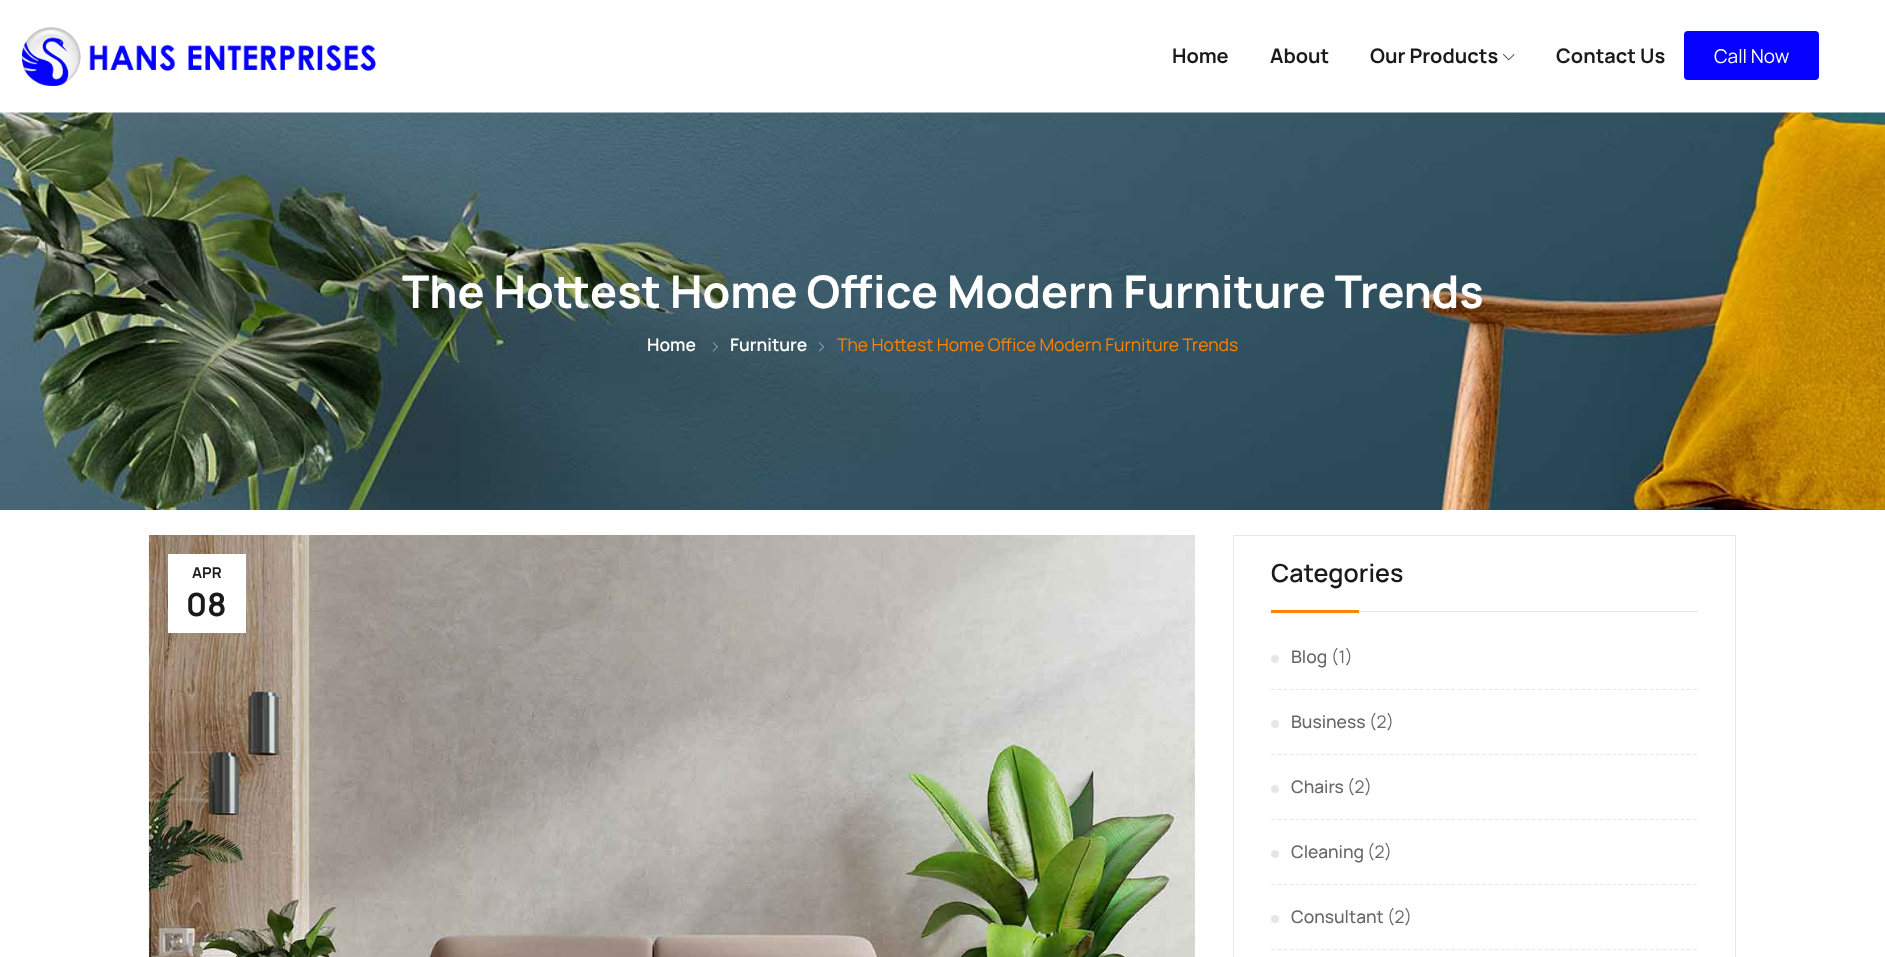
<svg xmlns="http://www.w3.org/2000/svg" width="1885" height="957">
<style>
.a{font:bold 20px Manrope;fill:#1a1a1a}
.b{font:19px Manrope;fill:#fff}
.c{font:bold 45px Manrope;fill:#fff}
.d{font:600 17.5px Manrope;fill:#fff}
.e{font:17.5px Manrope;fill:#ff8400}
.f{font:bold 15px Manrope;fill:#1a1a1a}
.g{font:bold 32px Manrope;fill:#1a1a1a}
.h{font:600 25px Manrope;fill:#1a1a1a}
.i{font:500 17.5px Manrope;fill:#666}
.j{font:17.5px Manrope;fill:#666}
</style>
<rect width="100%" height="100%" fill="#fff"/>
<image href="1.png" x="22" y="27" width="354" height="59"/>
<image href="2.png" x="1503" y="54" width="12" height="7"/>
<rect fill="#0600fe" x="1684" y="31" width="135" height="49" rx="4"/>
<image href="3.png" x="0" y="112" width="1885" height="398"/>
<image href="4.png" x="712" y="342" width="6" height="10"/>
<image href="5.png" x="819" y="342" width="5" height="10"/>
<image href="6.png" x="148" y="535" width="1047" height="422"/>
<path fill="#fff" d="M168 554h78v79H168z"/>
<path fill="none" stroke="#e6e6e6" d="M1233.5 535.5h502v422H1233.5z"/>
<path fill="#e6e6e6" d="M1359 611h339v1H1359z"/>
<path fill="#ff8400" d="M1271 610h88v3H1271z"/>
<path fill="none" stroke="#e6e6e6" stroke-width="1.2" stroke-dasharray="3.75 2.46" d="M1271 689.5h426.5"/>
<circle fill="#e6e6e6" cx="1275" cy="659" r="4"/>
<path fill="none" stroke="#e6e6e6" stroke-width="1.2" stroke-dasharray="3.75 2.46" d="M1271 754.5h426.5"/>
<circle fill="#e6e6e6" cx="1275" cy="724" r="4"/>
<path fill="none" stroke="#e6e6e6" stroke-width="1.2" stroke-dasharray="3.75 2.46" d="M1271 819.5h426.5"/>
<circle fill="#e6e6e6" cx="1275" cy="789" r="4"/>
<path fill="none" stroke="#e6e6e6" stroke-width="1.2" stroke-dasharray="3.75 2.46" d="M1271 884.5h426.5"/>
<circle fill="#e6e6e6" cx="1275" cy="854" r="4"/>
<path fill="none" stroke="#e6e6e6" stroke-width="1.2" stroke-dasharray="3.75 2.46" d="M1271 949.5h426.5"/>
<circle fill="#e6e6e6" cx="1275" cy="919" r="4"/>
<text class="a" x="1172" y="63">Home</text>
<text class="a" x="1270" y="63">About</text>
<text class="a" x="1370" y="63">Our Products</text>
<text class="a" x="1556" y="63">Contact Us</text>
<text class="b" x="1714" y="63">Call Now</text>
<text class="c" x="402" y="308">The Hottest Home Office Modern Furniture Trends</text>
<text class="d" x="647" y="351">Home</text>
<text class="d" x="730" y="351">Furniture</text>
<text class="e" x="837" y="351">The Hottest Home Office Modern Furniture Trends</text>
<text class="f" x="192" y="578">APR</text>
<text class="g" x="186" y="616">08</text>
<text class="h" x="1271" y="582">Categories</text>
<text class="i" x="1291" y="663">Blog</text>
<text class="j" x="1331" y="663">(1)</text>
<text class="i" x="1291" y="728">Business</text>
<text class="j" x="1369" y="728">(2)</text>
<text class="i" x="1291" y="793">Chairs</text>
<text class="j" x="1347" y="793">(2)</text>
<text class="i" x="1291" y="858">Cleaning</text>
<text class="j" x="1367" y="858">(2)</text>
<text class="i" x="1291" y="923">Consultant</text>
<text class="j" x="1387" y="923">(2)</text>
</svg>
